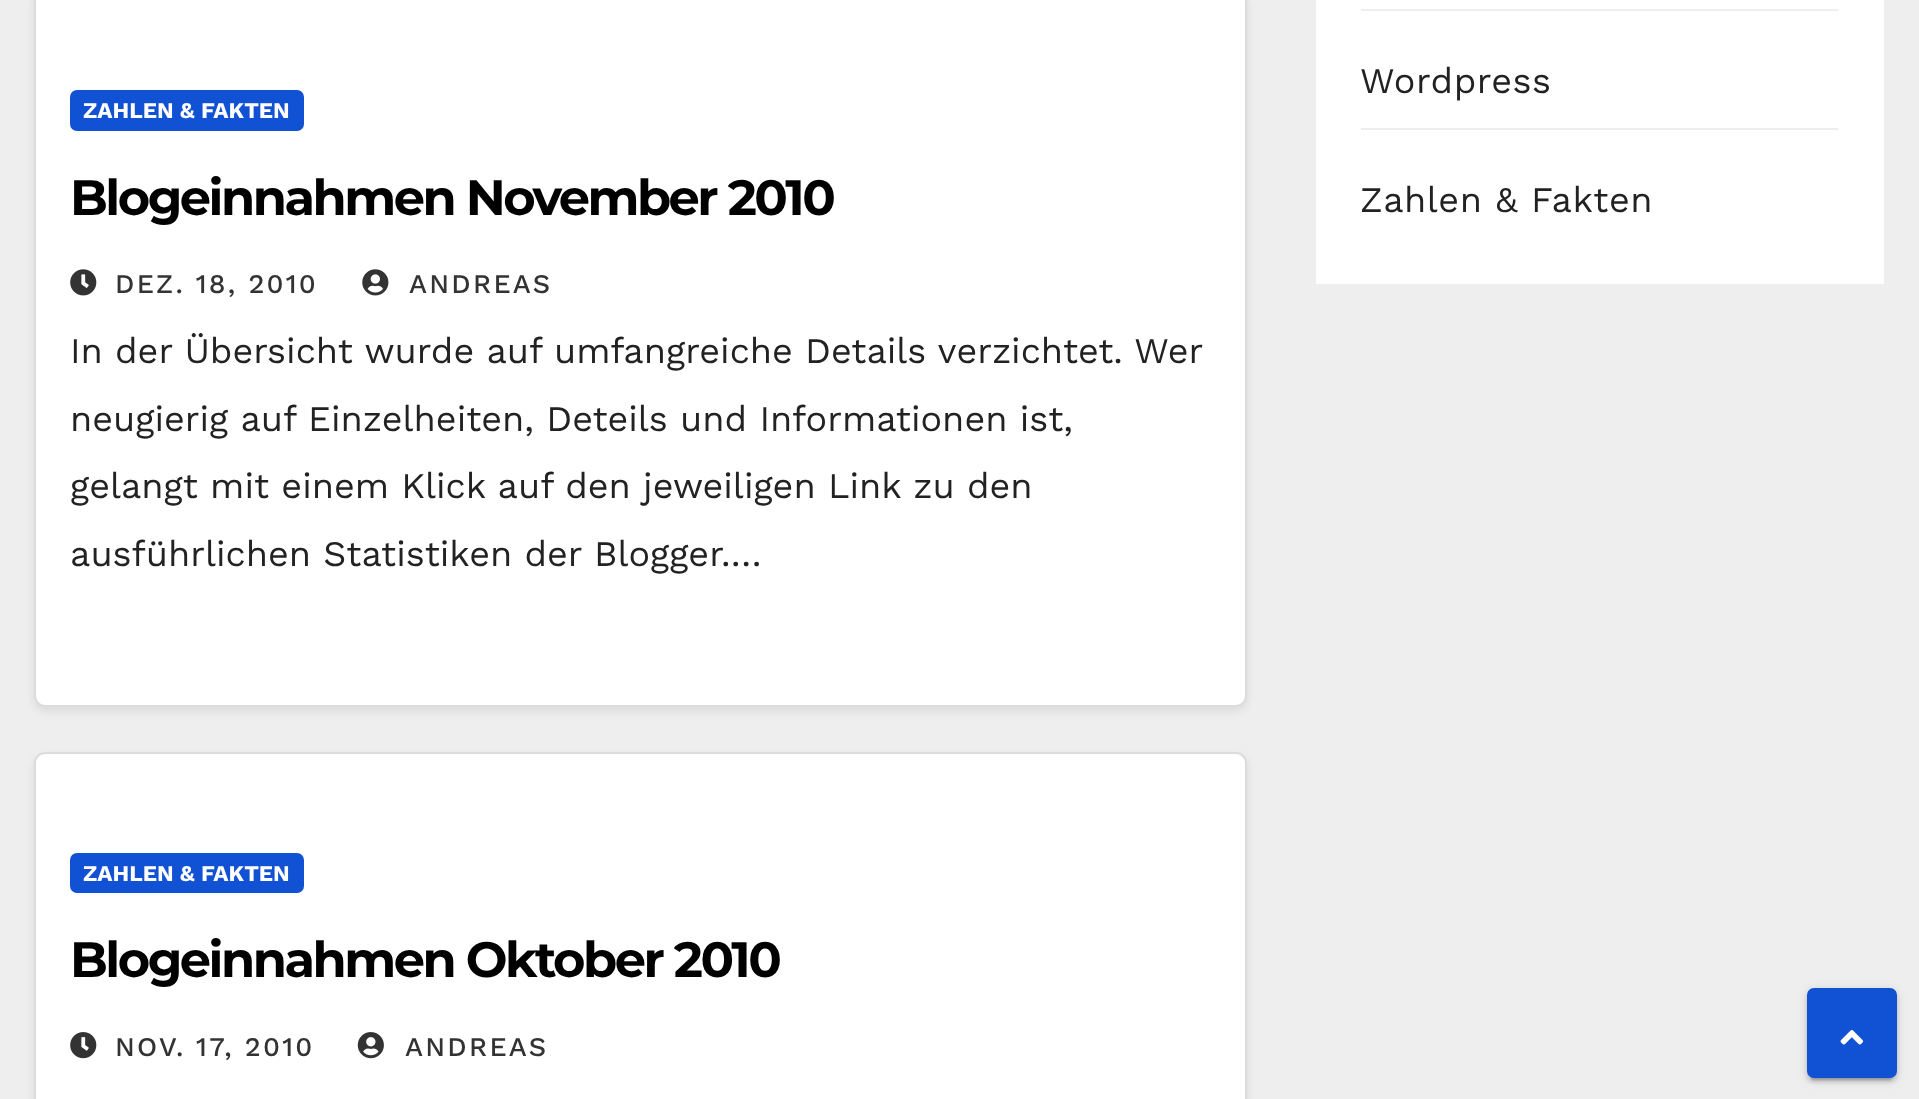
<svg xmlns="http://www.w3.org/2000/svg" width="1919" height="1099">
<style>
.a{font:bold 22.5px Work Sans;fill:#fff}
.b{font:bold 49.5px Montserrat;letter-spacing:-2.5px;fill:#000}
.c{font:500 27px Work Sans;letter-spacing:2.25px;fill:#333}
.d{font:36px Work Sans;fill:#222}
.e{font:36px Work Sans;letter-spacing:0.5px;fill:#222}
</style>
<rect width="100%" height="100%" fill="#eee"/>
<rect fill="#00000014" filter="blur(4.5px)" x="34" y="-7" width="1213" height="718" rx="11"/>
<rect fill="#fff" stroke="#dddcdc" stroke-width="2" x="35" y="-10" width="1211" height="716" rx="10"/>
<rect fill="#1151d3" x="70" y="90" width="234" height="41" rx="7"/>
<image href="1.png" x="70" y="269" width="27" height="27"/>
<image href="2.png" x="362" y="269" width="27" height="27"/>
<rect fill="#00000014" filter="blur(4.5px)" x="34" y="756" width="1213" height="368" rx="11"/>
<rect fill="#fff" stroke="#dddcdc" stroke-width="2" x="35" y="753" width="1211" height="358" rx="10"/>
<rect fill="#1151d3" x="70" y="853" width="234" height="40" rx="7"/>
<image href="3.png" x="70" y="1032" width="27" height="27"/>
<image href="4.png" x="357" y="1032" width="27" height="27"/>
<path fill="#fff" d="M1316 0h568v284H1316z"/>
<path fill="#eee" d="M1361 9h477v2H1361z"/>
<path fill="#eee" d="M1361 128h477v2H1361z"/>
<rect fill="#0000001f" filter="blur(5.5px)" x="1807" y="990" width="90" height="90" rx="7"/>
<rect fill="#00000033" filter="blur(1px)" x="1811" y="999" width="81" height="81" rx="2"/>
<rect fill="#00000024" filter="blur(2px)" x="1807" y="992" width="90" height="90" rx="7"/>
<rect fill="#1151d3" stroke="#1151d3" stroke-width="5" x="1809.5" y="990.5" width="85" height="85" rx="4.5"/>
<image href="5.png" x="1840" y="1030" width="24" height="15"/>
<text class="a" x="83" y="118">ZAHLEN &amp; FAKTEN</text>
<text class="b" x="70" y="215">Blogeinnahmen November 2010</text>
<text class="c" x="115" y="293">DEZ. 18, 2010</text>
<text class="c" x="409" y="293">ANDREAS</text>
<text class="d" x="70" y="363">In der Übersicht wurde auf umfangreiche Details verzichtet. Wer</text>
<text class="d" x="70" y="431">neugierig auf Einzelheiten, Deteils und Informationen ist,</text>
<text class="d" x="70" y="498">gelangt mit einem Klick auf den jeweiligen Link zu den</text>
<text class="d" x="70" y="566">ausführlichen Statistiken der Blogger.…</text>
<text class="a" x="83" y="881">ZAHLEN &amp; FAKTEN</text>
<text class="b" x="70" y="977">Blogeinnahmen Oktober 2010</text>
<text class="c" x="115" y="1056">NOV. 17, 2010</text>
<text class="c" x="405" y="1056">ANDREAS</text>
<text class="e" x="1360" y="93">Wordpress</text>
<text class="e" x="1360" y="212">Zahlen &amp; Fakten</text>
</svg>
